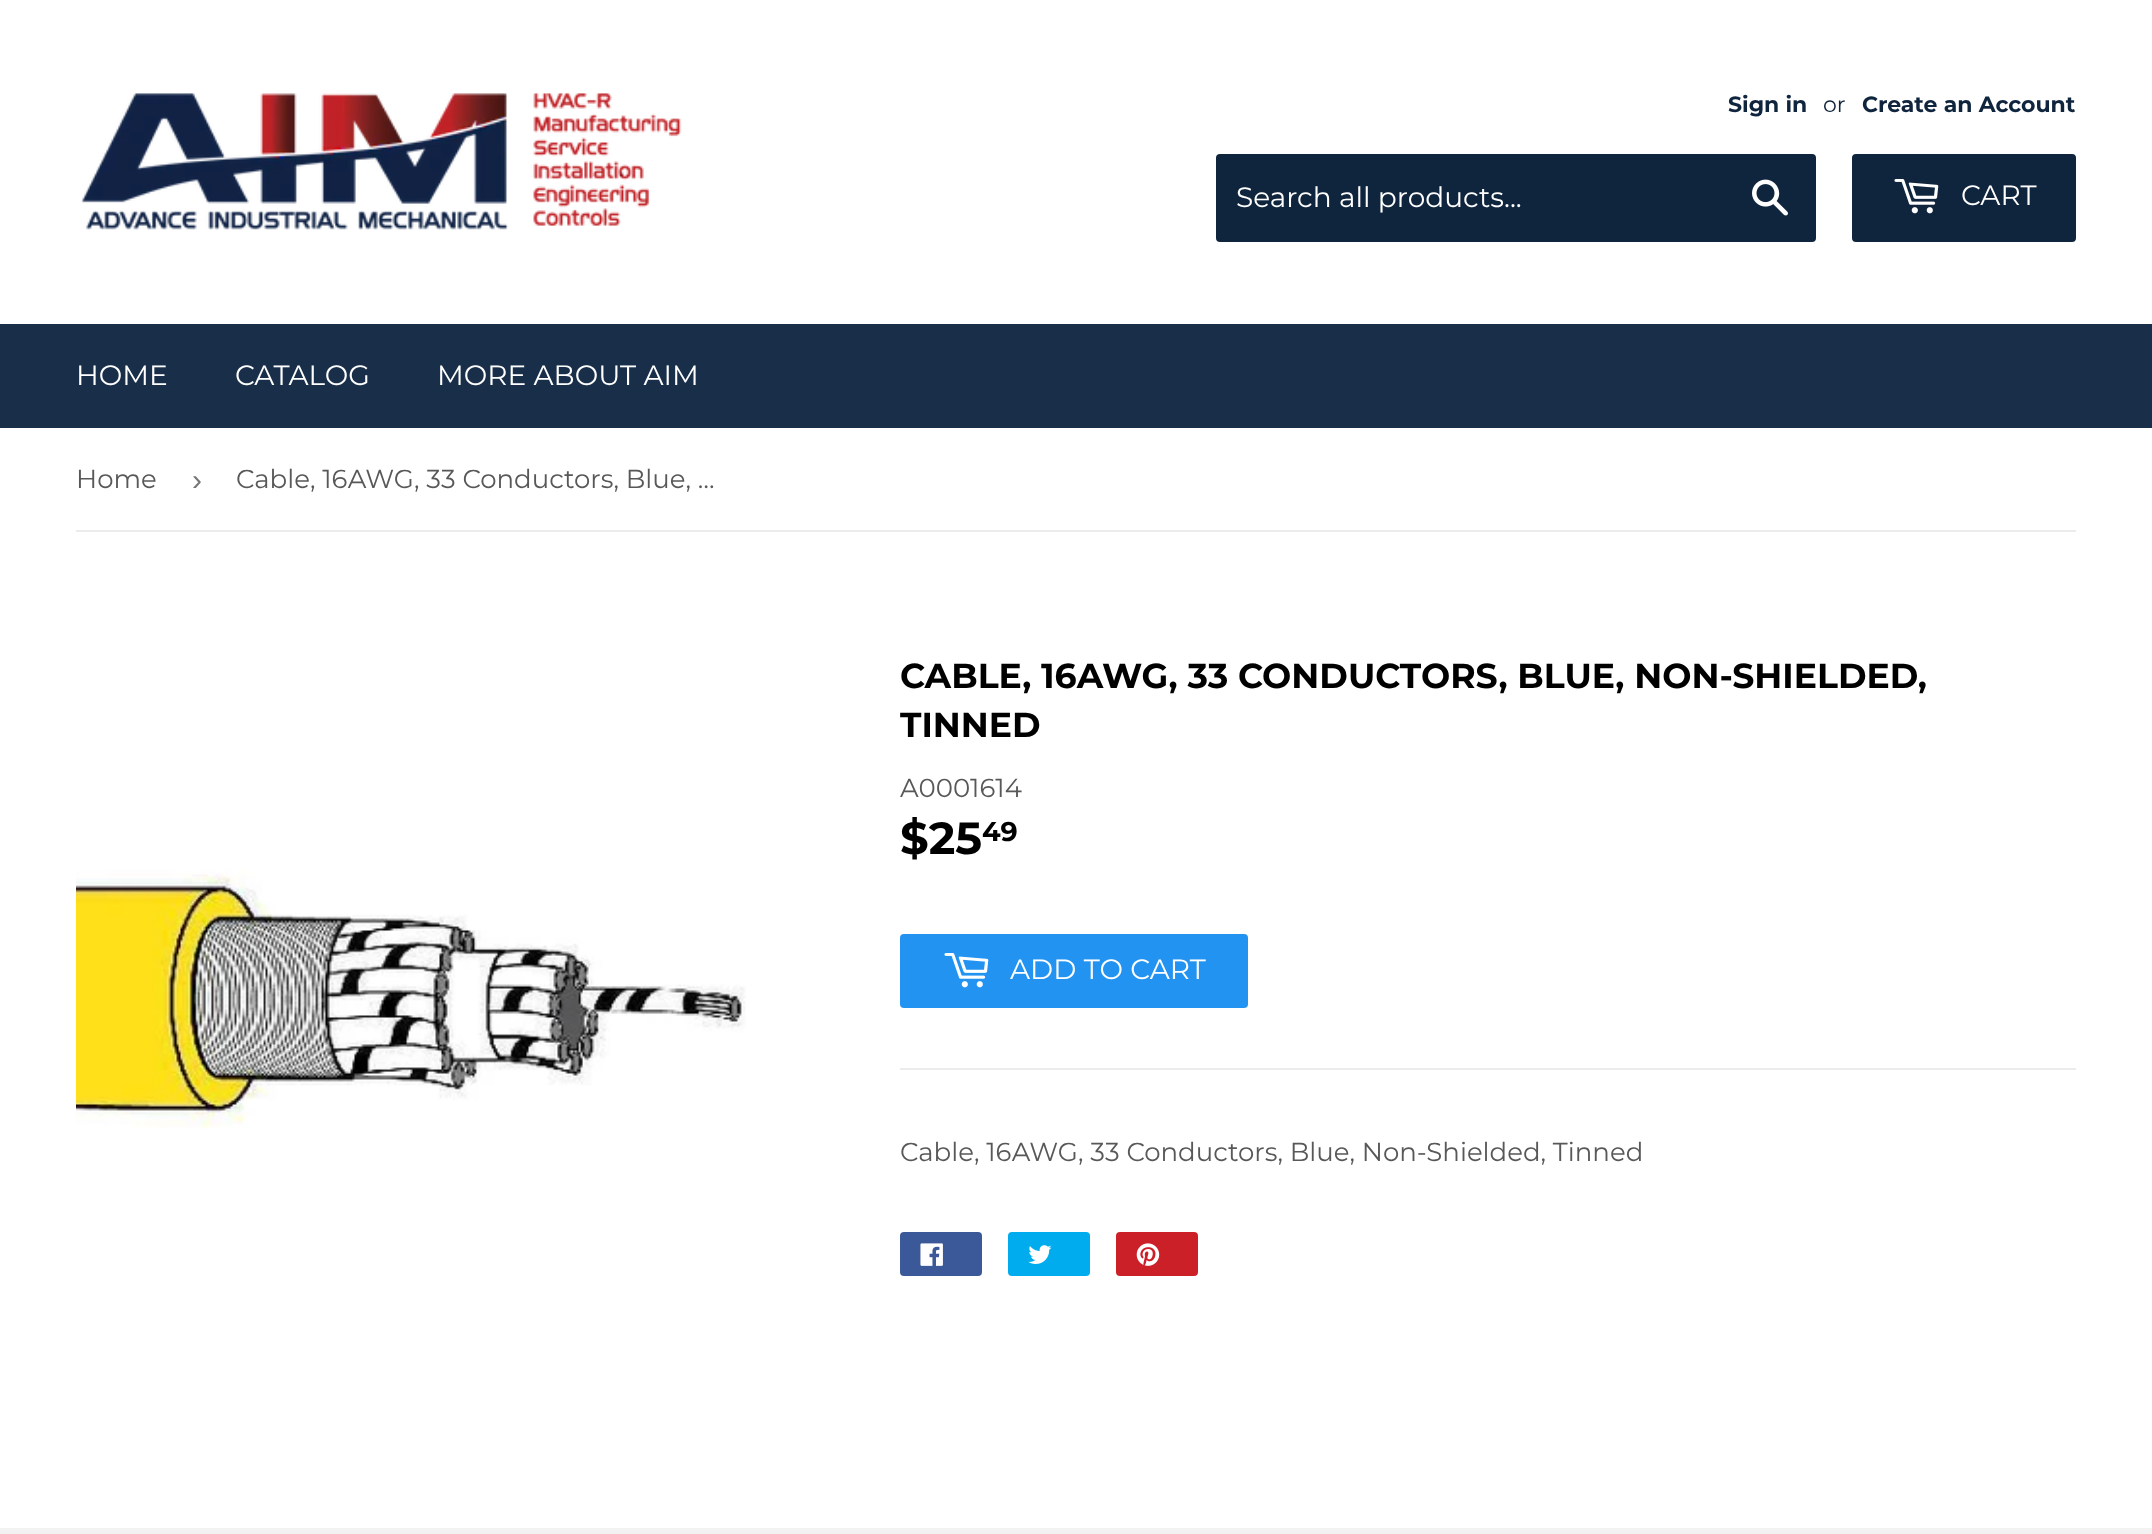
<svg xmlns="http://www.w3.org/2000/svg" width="2152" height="1534">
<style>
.a{font:bold 22px Montserrat;fill:#0f243d}
.b{font:22px Montserrat;fill:#0f243d}
.c{font:28px Montserrat;fill:#fff}
.d{font:26px Montserrat;fill:#585858}
.e{font:30px Liberation Sans;fill:#767676}
.f{font:bold 34.65px Montserrat;fill:#000}
.g{font:bold 45px Montserrat;fill:#000}
.h{font:bold 27px Montserrat;fill:#000}
</style>
<rect width="100%" height="100%" fill="#fff"/>
<image href="1.png" x="81" y="93" width="601" height="137"/>
<rect fill="#0f243d" x="1216" y="154" width="600" height="88" rx="4"/>
<image href="2.png" x="1752" y="179" width="36" height="37"/>
<rect fill="#0f243d" x="1852" y="154" width="224" height="88" rx="4"/>
<image href="3.png" x="1894" y="179" width="45" height="35"/>
<path fill="#182e49" d="M0 324h2152v104H0z"/>
<path fill="#ececec" d="M76 530h2000v2H76z"/>
<image href="4.png" x="76" y="869" width="670" height="260"/>
<rect fill="#2393f2" x="900" y="934" width="348" height="74" rx="4"/>
<image href="5.png" x="944" y="953" width="45" height="35"/>
<path fill="#ececec" d="M900 1068h1176v2H900z"/>
<rect fill="#3b5998" x="900" y="1232" width="82" height="44" rx="4"/>
<image href="6.png" x="920" y="1243" width="23" height="23"/>
<rect fill="#00aced" x="1008" y="1232" width="82" height="44" rx="4"/>
<image href="7.png" x="1028" y="1245" width="24" height="19"/>
<rect fill="#cb2027" x="1116" y="1232" width="82" height="44" rx="4"/>
<image href="8.png" x="1136" y="1243" width="24" height="23"/>
<path fill="#f2f2f2" d="M0 1528h2152v6H0z"/>
<text class="a" x="1728" y="112">Sign in</text>
<text class="b" x="1823" y="112">or</text>
<text class="a" x="1862" y="112">Create an Account</text>
<text class="c" x="1236" y="207">Search all products...</text>
<text class="c" x="1961" y="205">CART</text>
<text class="c" x="76" y="385">HOME</text>
<text class="c" x="235" y="385">CATALOG</text>
<text class="c" x="437" y="385">MORE ABOUT AIM</text>
<text class="d" x="76" y="488">Home</text>
<text class="e" x="192" y="490">›</text>
<text class="d" x="236" y="488">Cable, 16AWG, 33 Conductors, Blue, …</text>
<text class="f" x="900" y="688">CABLE, 16AWG, 33 CONDUCTORS, BLUE, NON-SHIELDED,</text>
<text class="f" x="900" y="737">TINNED</text>
<text class="d" x="900" y="797">A0001614</text>
<text class="g" x="900" y="854">$25</text>
<text class="h" x="982" y="841">49</text>
<text class="c" x="1010" y="979">ADD TO CART</text>
<text class="d" x="900" y="1161">Cable, 16AWG, 33 Conductors, Blue, Non-Shielded, Tinned</text>
</svg>
